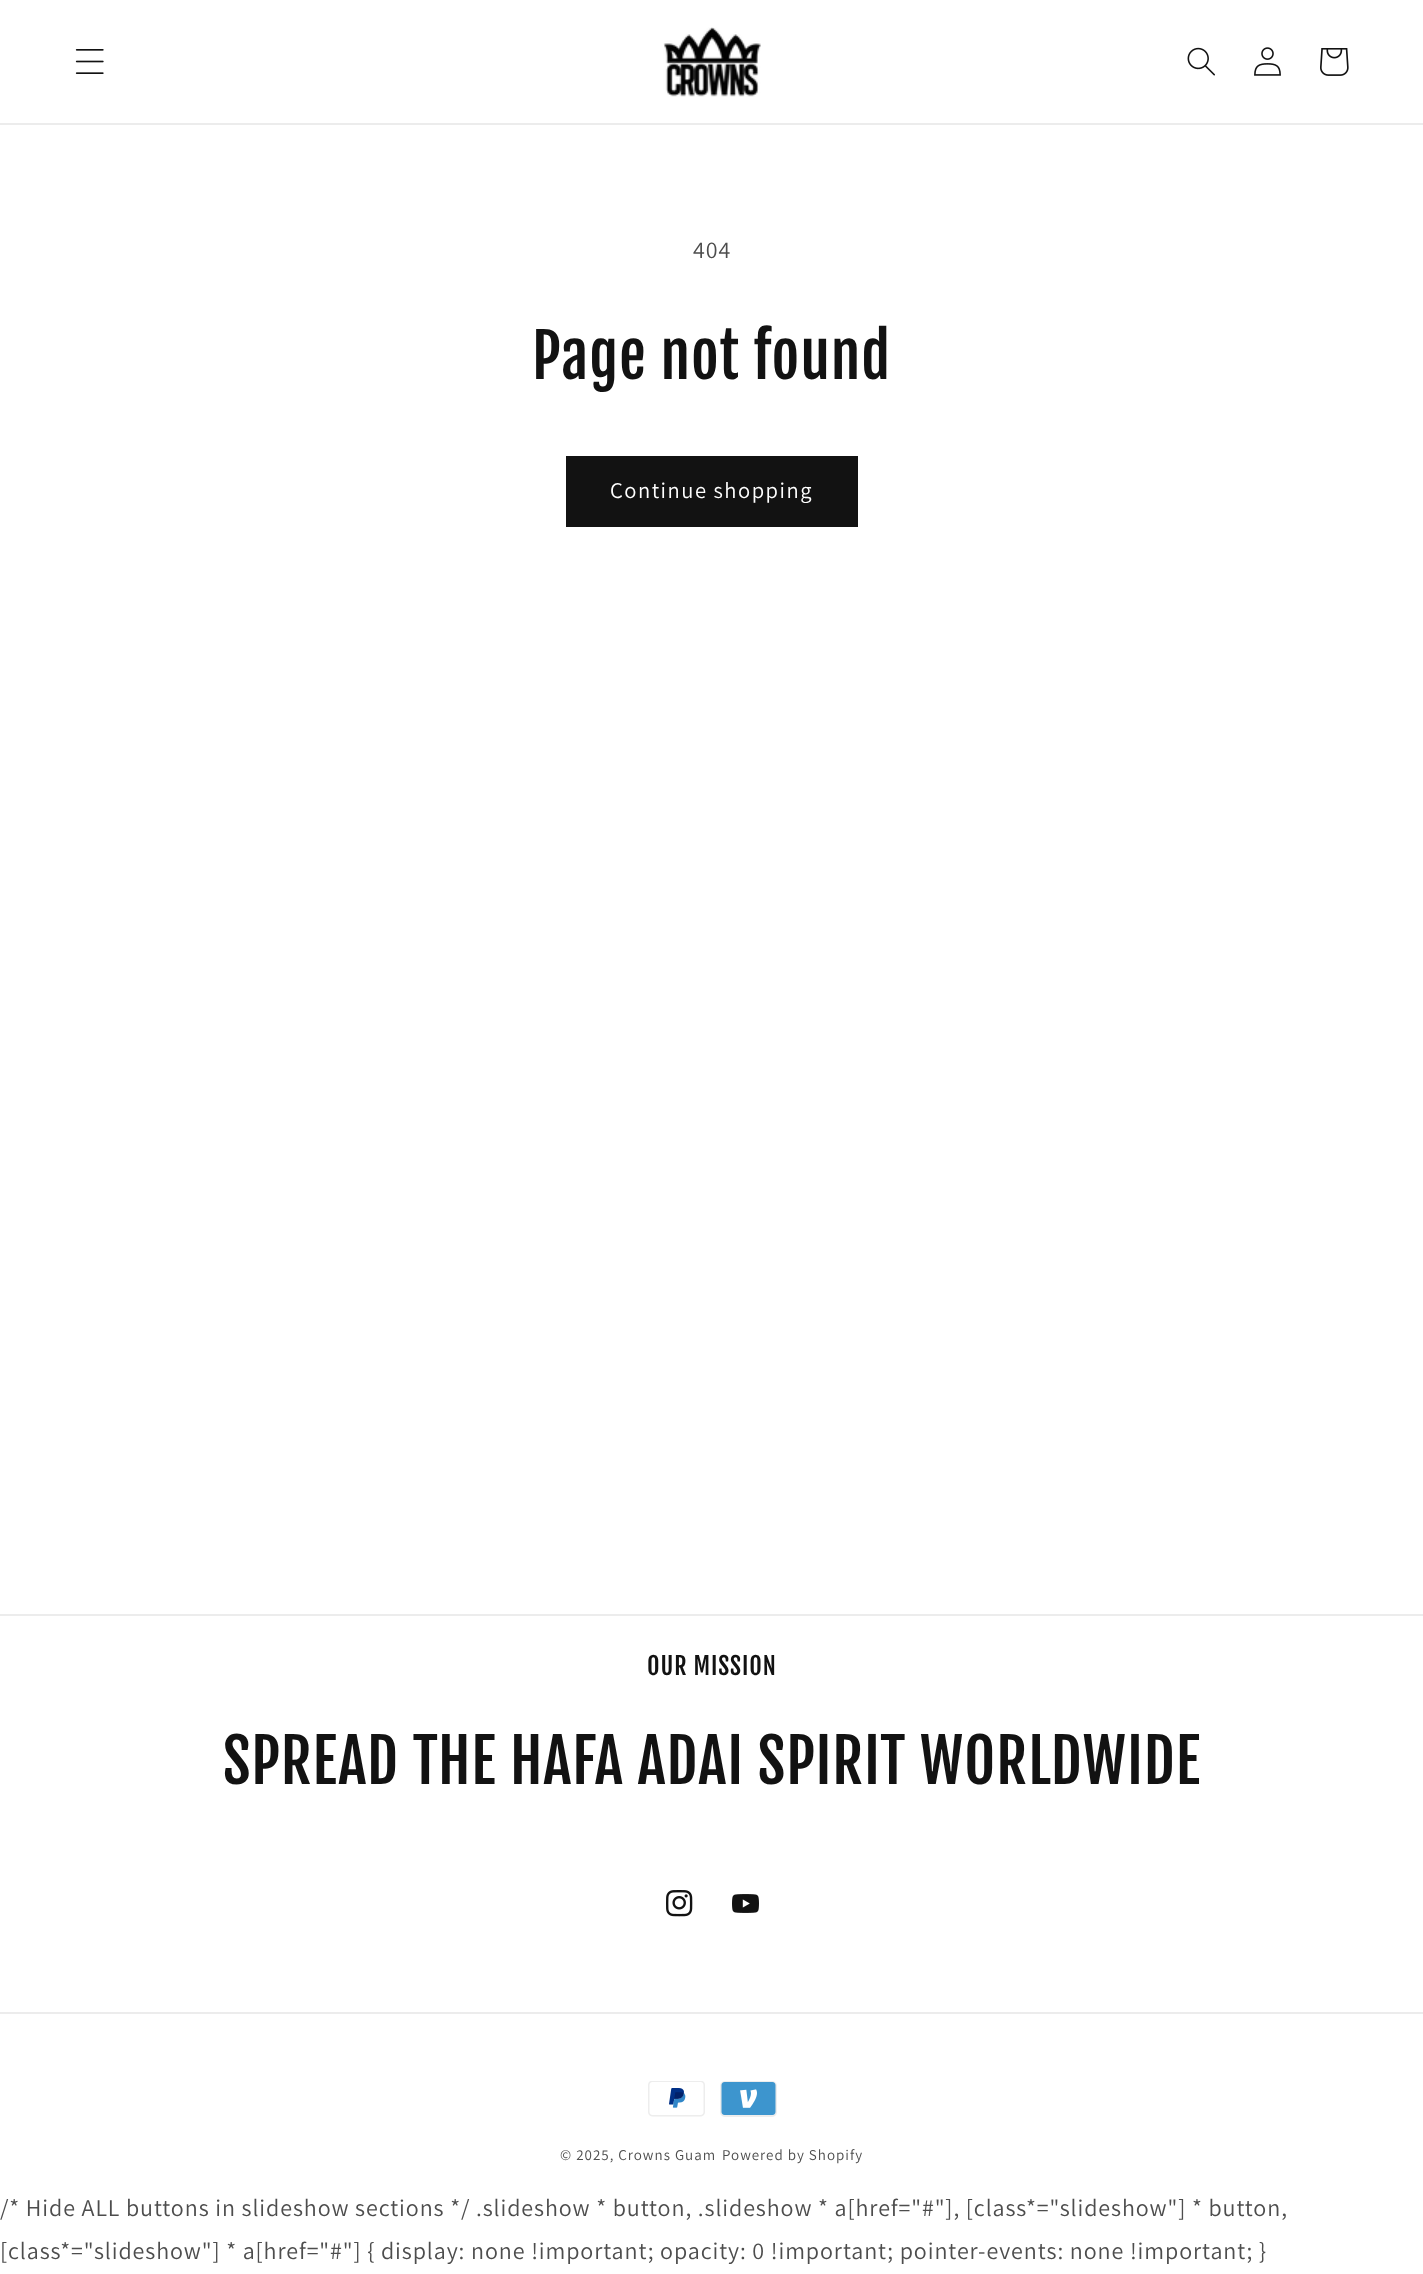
<svg xmlns="http://www.w3.org/2000/svg" width="1423" height="2274">
<style>
.a{font:24px Assistant;letter-spacing:0.9px;fill:#4d4d4d}
.b{font:60px Fjalla One;letter-spacing:0.9px;fill:#121212}
.c{font:22.5px Assistant;letter-spacing:1.5px;fill:#fff}
.d{font:24px Fjalla One;letter-spacing:0.9px;fill:#121212}
.e{font:15px Assistant;letter-spacing:1px;fill:#4d4d4d}
</style>
<rect width="100%" height="100%" fill="#fff"/>
<path fill="#ececec" d="M0 123h1423v2H0z"/>
<image href="1.png" x="75" y="49" width="29" height="25"/>
<image href="2.png" x="663" y="27" width="98" height="70"/>
<image href="3.png" x="1187" y="47" width="28" height="29"/>
<image href="4.png" x="1254" y="47" width="27" height="29"/>
<image href="5.png" x="1320" y="48" width="29" height="28"/>
<path fill="#121212" d="M566 456h292v71H566z"/>
<path fill="#ececec" d="M0 1614h1423v2H0z"/>
<image href="6.png" x="666" y="1890" width="27" height="27"/>
<image href="7.png" x="732" y="1894" width="27" height="19"/>
<path fill="#ececec" d="M0 2012h1423v2H0z"/>
<image href="8.png" x="648" y="2081" width="57" height="36"/>
<image href="9.png" x="720" y="2081" width="57" height="36"/>
<text class="a" x="693" y="258">404</text>
<text class="b" x="532" y="379">Page not found</text>
<text class="c" x="610" y="498">Continue shopping</text>
<text class="d" x="647" y="1675">OUR MISSION</text>
<text class="b" x="223" y="1784">SPREAD THE HAFA ADAI SPIRIT WORLDWIDE</text>
<text class="e" x="560" y="2160">© 2025, Crowns Guam</text>
<text class="e" x="722" y="2160">Powered by Shopify</text>
<text class="a" x="0" y="2216">/* Hide ALL buttons in slideshow sections */ .slideshow * button, .slideshow * a[href="#"], [class*="slideshow"] * button,</text>
<text class="a" x="0" y="2259">[class*="slideshow"] * a[href="#"] { display: none !important; opacity: 0 !important; pointer-events: none !important; }</text>
</svg>
